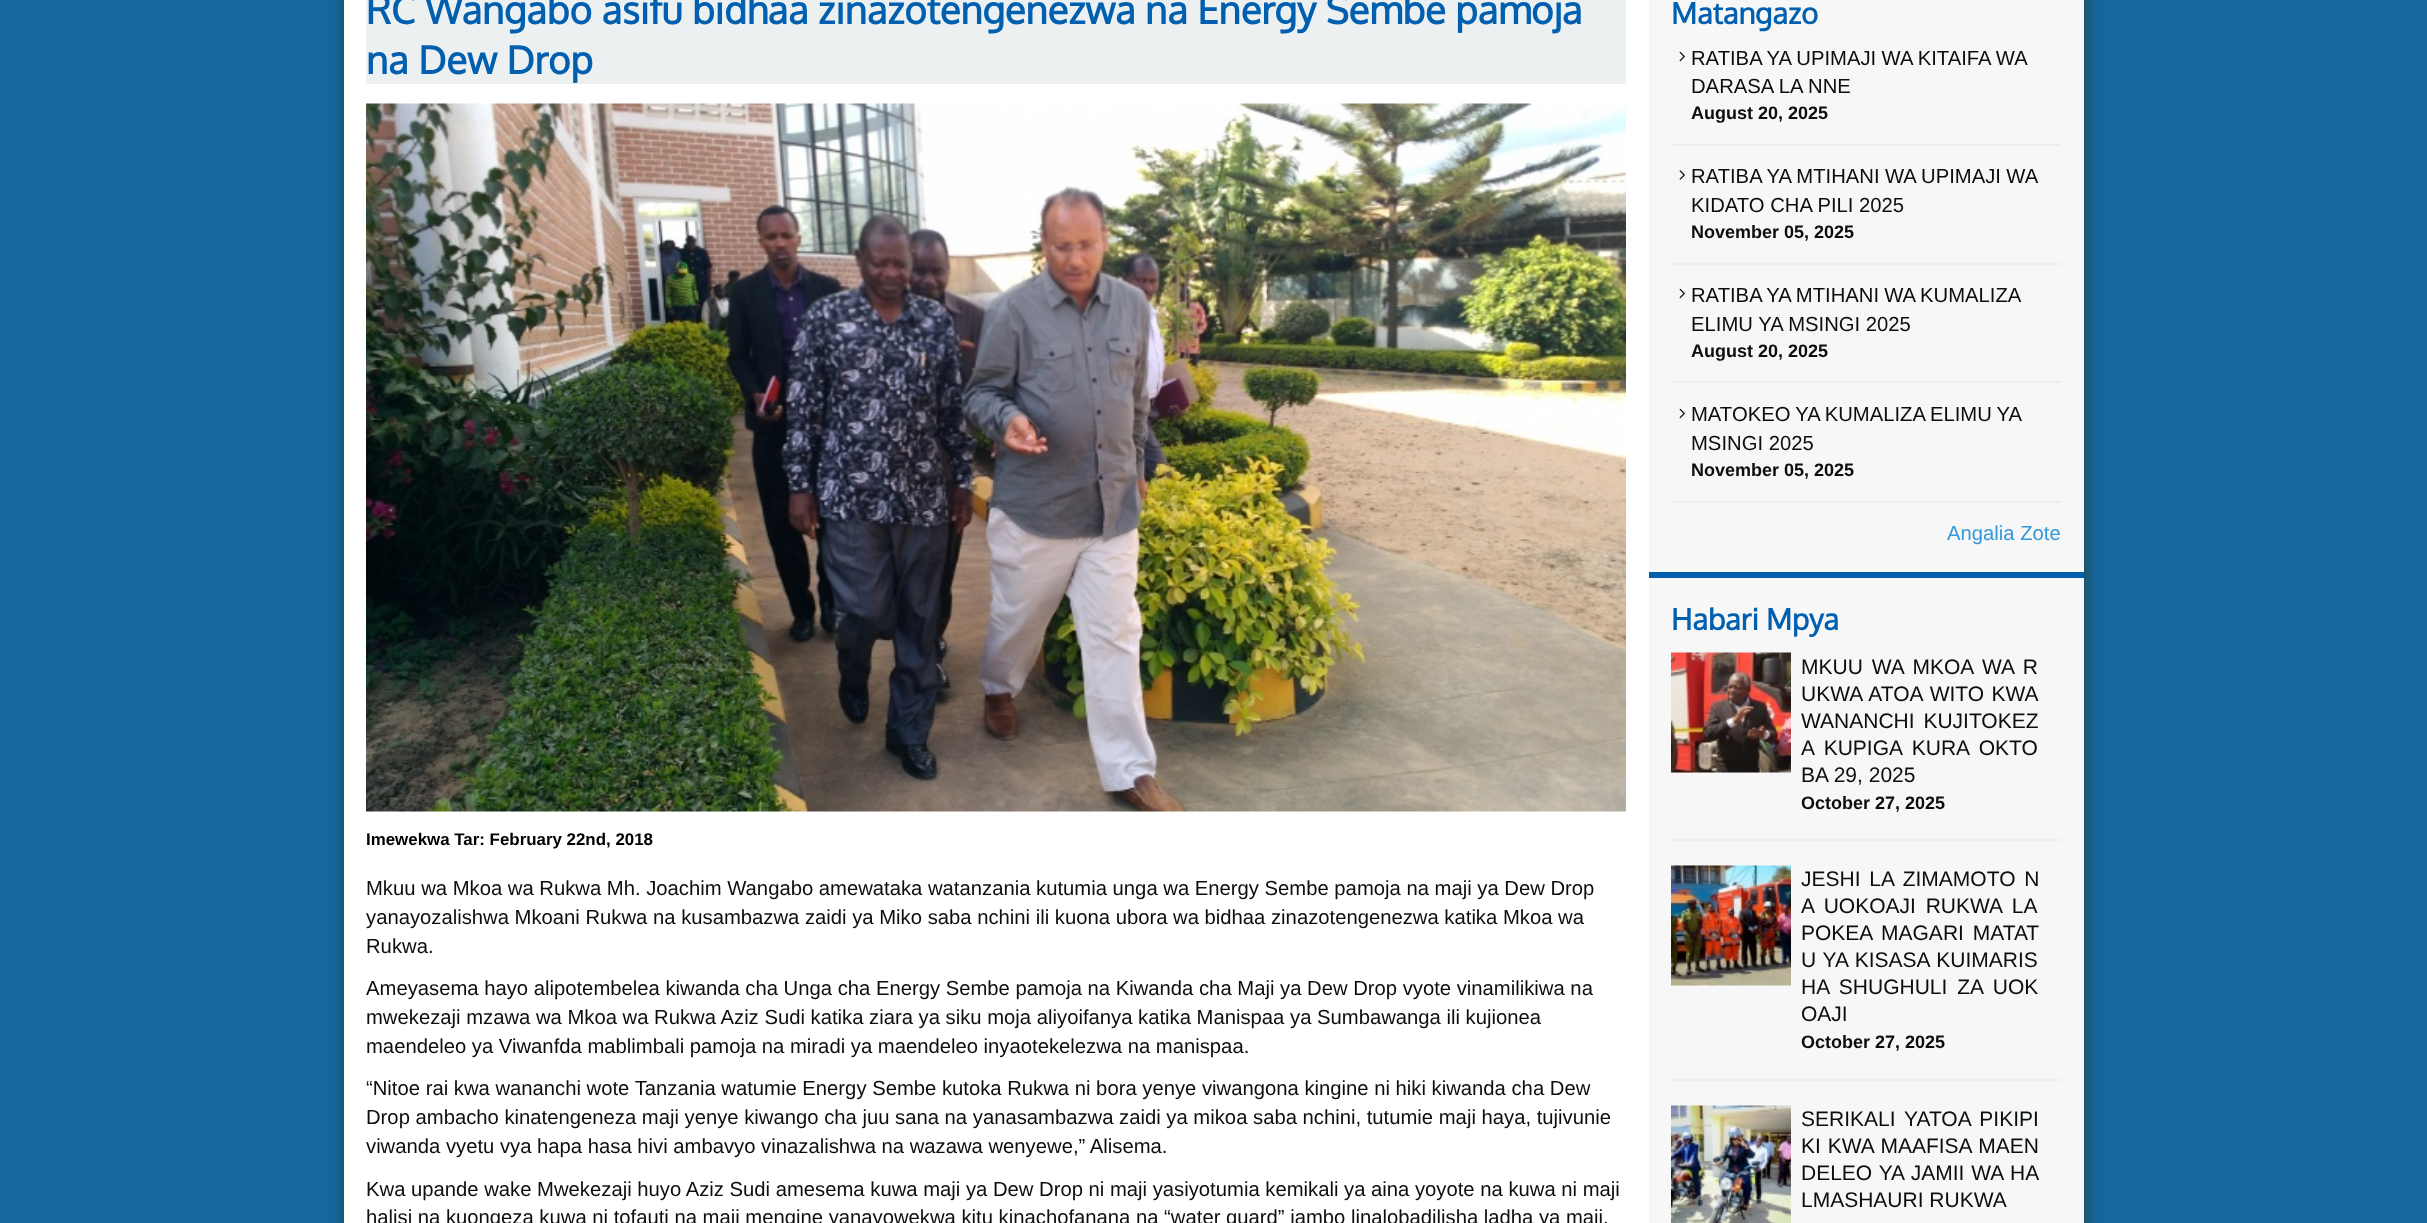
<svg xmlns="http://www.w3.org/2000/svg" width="2427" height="1223">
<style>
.a{font:bold 38.25px Oxygen;fill:#005faf}
.b{font:bold 16.9px Liberation Sans;fill:#000}
.c{font:20.25px Liberation Sans;fill:#0a0e0e}
.d{font:bold 29.25px Oxygen;fill:#005faf}
.e{font:bold 18px Liberation Sans;fill:#0a0e0e}
.f{font:20.25px Liberation Sans;fill:#3498db}
.g{font:21px Liberation Sans;fill:#0a0e0e}
</style>
<rect width="100%" height="100%" fill="#14689c"/>
<path fill="#323232bf" filter="blur(7.5px)" d="M345 -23h1740v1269H345z"/>
<path fill="#fff" d="M344 0h1305v1223H344z"/>
<path fill="#ecf0f1" d="M366 0h1260v84H366z"/>
<image href="1.png" x="366" y="103" width="1260" height="709"/>
<path fill="#f7f7f7" d="M1649 0h435v1223H1649z"/>
<path fill="#eee" d="M1671 144h390v2H1671z"/>
<image href="2.png" x="1679" y="51" width="6" height="11"/>
<path fill="#eee" d="M1671 263h390v2H1671z"/>
<image href="3.png" x="1679" y="170" width="6" height="10"/>
<path fill="#eee" d="M1671 381h390v2H1671z"/>
<image href="2.png" x="1679" y="288" width="6" height="11"/>
<path fill="#eee" d="M1671 501h390v2H1671z"/>
<image href="2.png" x="1679" y="408" width="6" height="11"/>
<path fill="#005faf" d="M1649 572h435v6H1649z"/>
<path fill="#eee" d="M1671 839h390v2H1671z"/>
<image href="4.png" x="1671" y="652" width="120" height="121"/>
<path fill="#eee" d="M1671 1079h390v2H1671z"/>
<image href="5.png" x="1671" y="865" width="120" height="121"/>
<image href="6.png" x="1671" y="1105" width="120" height="118"/>
<text class="a" x="366" y="24">RC Wangabo asifu bidhaa zinazotengenezwa na Energy Sembe pamoja</text>
<text class="a" x="366" y="74">na Dew Drop</text>
<text class="b" x="366" y="845">Imewekwa Tar: February 22nd, 2018</text>
<text class="c" x="366" y="895">Mkuu wa Mkoa wa Rukwa Mh. Joachim Wangabo amewataka watanzania kutumia unga wa Energy Sembe pamoja na maji ya Dew Drop</text>
<text class="c" x="366" y="924">yanayozalishwa Mkoani Rukwa na kusambazwa zaidi ya Miko saba nchini ili kuona ubora wa bidhaa zinazotengenezwa katika Mkoa wa</text>
<text class="c" x="366" y="953">Rukwa.</text>
<text class="c" x="366" y="995">Ameyasema hayo alipotembelea kiwanda cha Unga cha Energy Sembe pamoja na Kiwanda cha Maji ya Dew Drop vyote vinamilikiwa na</text>
<text class="c" x="366" y="1024">mwekezaji mzawa wa Mkoa wa Rukwa Aziz Sudi katika ziara ya siku moja aliyoifanya katika Manispaa ya Sumbawanga ili kujionea</text>
<text class="c" x="366" y="1053">maendeleo ya Viwanfda mablimbali pamoja na miradi ya maendeleo inyaotekelezwa na manispaa.</text>
<text class="c" x="366" y="1095">“Nitoe rai kwa wananchi wote Tanzania watumie Energy Sembe kutoka Rukwa ni bora yenye viwangona kingine ni hiki kiwanda cha Dew</text>
<text class="c" x="366" y="1124">Drop ambacho kinatengeneza maji yenye kiwango cha juu sana na yanasambazwa zaidi ya mikoa saba nchini, tutumie maji haya, tujivunie</text>
<text class="c" x="366" y="1153">viwanda vyetu vya hapa hasa hivi ambavyo vinazalishwa na wazawa wenyewe,” Alisema.</text>
<text class="c" x="366" y="1196">Kwa upande wake Mwekezaji huyo Aziz Sudi amesema kuwa maji ya Dew Drop ni maji yasiyotumia kemikali ya aina yoyote na kuwa ni maji</text>
<text class="c" x="366" y="1224">halisi na kuongeza kuwa ni tofauti na maji mengine yanayowekwa kitu kinachofanana na “water guard” jambo linalobadilisha ladha ya maji.</text>
<text class="d" x="1671" y="24">Matangazo</text>
<text class="c" x="1691" y="65" word-spacing="-0.25">RATIBA YA UPIMAJI WA KITAIFA WA</text>
<text class="c" x="1691" y="93">DARASA LA NNE</text>
<text class="e" x="1691" y="119">August 20, 2025</text>
<text class="c" x="1691" y="183" word-spacing="-0.25">RATIBA YA MTIHANI WA UPIMAJI WA</text>
<text class="c" x="1691" y="212">KIDATO CHA PILI 2025</text>
<text class="e" x="1691" y="238">November 05, 2025</text>
<text class="c" x="1691" y="302" word-spacing="-0.5">RATIBA YA MTIHANI WA KUMALIZA</text>
<text class="c" x="1691" y="331">ELIMU YA MSINGI 2025</text>
<text class="e" x="1691" y="357">August 20, 2025</text>
<text class="c" x="1691" y="421" word-spacing="-0.5">MATOKEO YA KUMALIZA ELIMU YA</text>
<text class="c" x="1691" y="450">MSINGI 2025</text>
<text class="e" x="1691" y="476">November 05, 2025</text>
<text class="f" x="1947" y="540">Angalia Zote</text>
<text class="d" x="1671" y="630">Habari Mpya</text>
<text class="g" x="1801" y="674" word-spacing="3">MKUU WA MKOA WA R</text>
<text class="g" x="1801" y="701" word-spacing="1.5">UKWA ATOA WITO KWA</text>
<text class="g" x="1801" y="728" word-spacing="3">WANANCHI KUJITOKEZ</text>
<text class="g" x="1801" y="755" word-spacing="4">A KUPIGA KURA OKTO</text>
<text class="g" x="1801" y="782">BA 29, 2025</text>
<text class="e" x="1801" y="809">October 27, 2025</text>
<text class="g" x="1801" y="886" word-spacing="3">JESHI LA ZIMAMOTO N</text>
<text class="g" x="1801" y="913" word-spacing="4">A UOKOAJI RUKWA LA</text>
<text class="g" x="1801" y="940" word-spacing="3">POKEA MAGARI MATAT</text>
<text class="g" x="1801" y="967" word-spacing="1">U YA KISASA KUIMARIS</text>
<text class="g" x="1801" y="994" word-spacing="4">HA SHUGHULI ZA UOK</text>
<text class="g" x="1801" y="1021">OAJI</text>
<text class="e" x="1801" y="1048">October 27, 2025</text>
<text class="g" x="1801" y="1126" word-spacing="3">SERIKALI YATOA PIKIPI</text>
<text class="g" x="1801" y="1153" word-spacing="1">KI KWA MAAFISA MAEN</text>
<text class="g" x="1801" y="1180" word-spacing="1">DELEO YA JAMII WA HA</text>
<text class="g" x="1801" y="1207">LMASHAURI RUKWA</text>
</svg>
